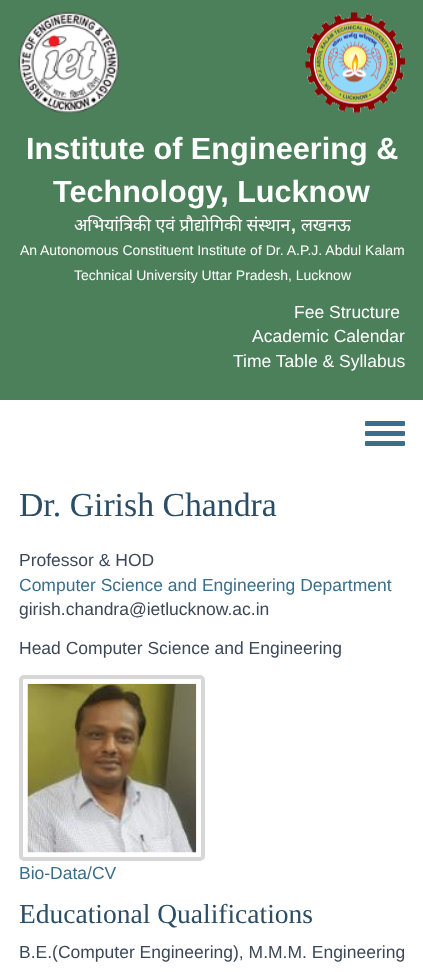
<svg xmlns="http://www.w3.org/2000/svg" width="423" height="972">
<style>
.a{font:bold 30.6px Liberation Sans;fill:#fff}
.b{font:17.5px Noto Sans;fill:#fff}
.c{font:bold 17.5px Liberation Sans;fill:#fff}
.d{font:14px Liberation Sans;fill:#fff}
.e{font:17.5px Liberation Sans;fill:#fff}
.f{font:33.75px Liberation Serif;fill:#2b4d66}
.g{font:17.5px Liberation Sans;fill:#3c4858}
.h{font:17.5px Liberation Sans;fill:#3a6e8c}
.i{font:27.5px Liberation Serif;fill:#2b4d66}
</style>
<rect width="100%" height="100%" fill="#fff"/>
<path fill="#4c805a" d="M0 0h423v400H0z"/>
<image href="1.png" x="18" y="12" width="101" height="102"/>
<image href="2.png" x="305" y="12" width="100" height="101"/>
<rect fill="#3a6e8c" x="365" y="431" width="40" height="5" rx="1"/>
<rect fill="#3a6e8c" x="365" y="421" width="40" height="5" rx="1"/>
<rect fill="#3a6e8c" x="365" y="441" width="40" height="5" rx="1"/>
<rect fill="none" stroke="#d7d7d7" stroke-width="4" x="21" y="677" width="182" height="182" rx="3"/>
<image href="3.png" x="27" y="683" width="170" height="170"/>
<text class="a" x="26" y="159">Institute of Engineering &amp;</text>
<text class="a" x="53" y="202">Technology, Lucknow</text>
<text class="b" x="74" y="231">अभियांत्रिकी एवं प्रौद्योगिकी संस्थान</text>
<text class="c" x="291" y="231">,</text>
<text class="b" x="301" y="231">लखनऊ</text>
<text class="d" x="20" y="255">An</text>
<text class="d" x="40" y="255">Autonomous Constituent Institute of Dr. A.P.J. Abdul Kalam</text>
<text class="d" x="74" y="280">Technical University Uttar Pradesh, Lucknow</text>
<text class="e" x="294" y="318">Fee Structure</text>
<text class="e" x="252" y="342">Academic Calendar</text>
<text class="e" x="233" y="367">Time Table &amp; Syllabus</text>
<text class="f" x="19" y="516">Dr. Girish Chandra</text>
<text class="g" x="19" y="566">Professor &amp; HOD</text>
<text class="h" x="19" y="591">Computer Science and Engineering Department</text>
<text class="g" x="19" y="615">girish.chandra@ietlucknow.ac.in</text>
<text class="g" x="19" y="654">Head Computer Science and Engineering</text>
<text class="h" x="19" y="879">Bio-Data/CV</text>
<text class="i" x="19" y="923">Educational Qualifications</text>
<text class="g" x="19" y="958">B.E.(Computer Engineering), M.M.M. Engineering</text>
</svg>
